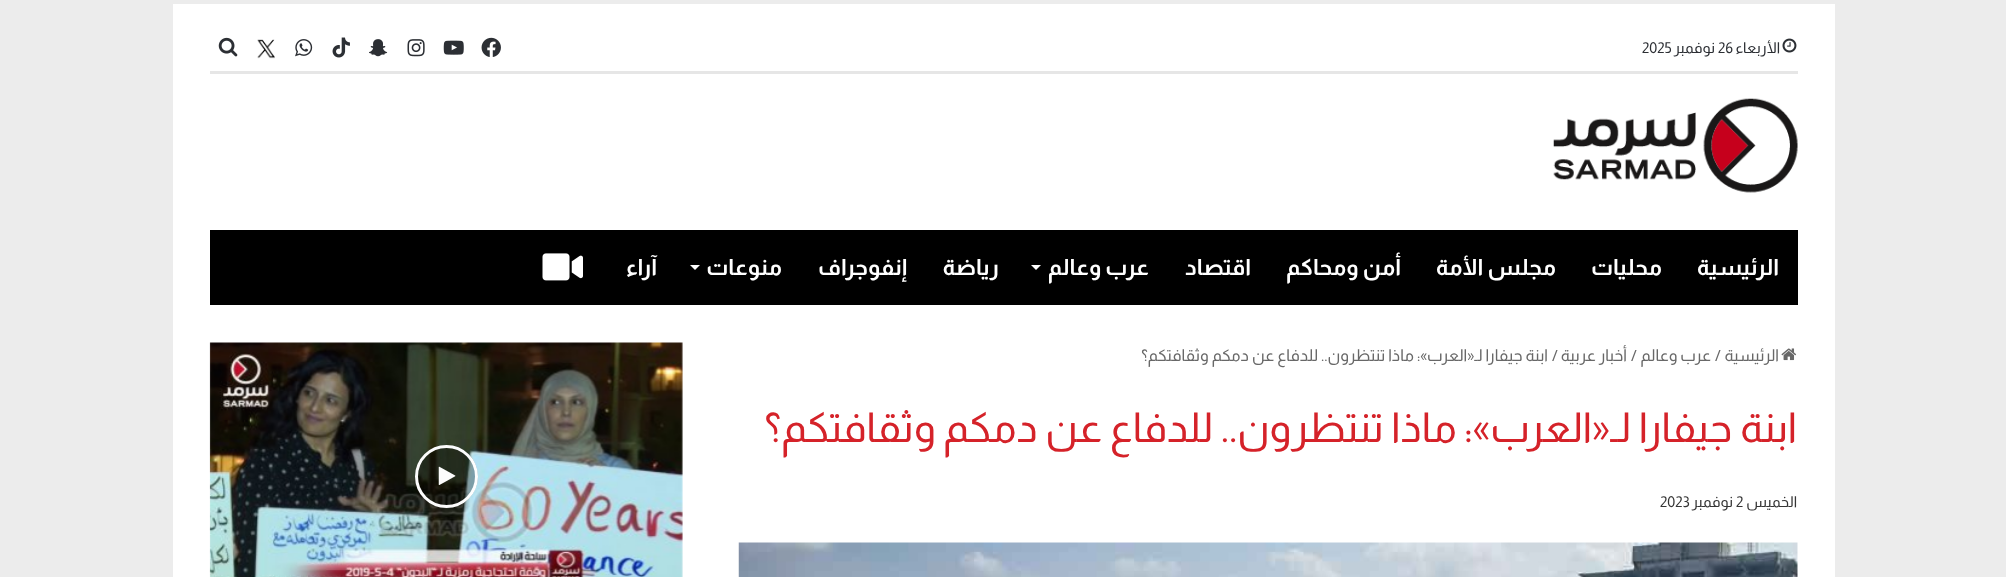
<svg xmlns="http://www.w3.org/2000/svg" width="2006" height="577">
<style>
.a{font:15px Almarai;direction:rtl;fill:#2c2f34}
.b{font:15px Almarai;fill:#2c2f34}
.c{font:bold 22.5px Almarai;direction:rtl;fill:#fff}
.d{font:16.25px Almarai;direction:rtl;fill:#686868}
.e{font:16.25px Almarai;fill:#686868}
.f{font:41.25px Almarai;direction:rtl;fill:#d52229}
.g{font:15px Almarai;direction:rtl;fill:#353535}
.h{font:15px Almarai;fill:#353535}
</style>
<rect width="100%" height="100%" fill="#ececec"/>
<path fill="#fff" d="M173 4h1662v573H173z"/>
<path fill="#e6e6e6" d="M210 71h1588v3H210z"/>
<image href="1.png" x="1782" y="38" width="15" height="15"/>
<image href="2.png" x="481" y="37" width="20" height="20"/>
<image href="3.png" x="443" y="40" width="21" height="15"/>
<image href="4.png" x="407" y="39" width="18" height="18"/>
<image href="5.png" x="369" y="39" width="19" height="18"/>
<image href="6.png" x="332" y="37" width="18" height="21"/>
<image href="7.png" x="295" y="39" width="18" height="18"/>
<image href="8.png" x="257" y="39" width="18" height="20"/>
<image href="9.png" x="218" y="37" width="20" height="20"/>
<image href="10.png" x="1553" y="98" width="245" height="95"/>
<path fill="#000" d="M210 230h1588v75H210z"/>
<path fill="#fff" d="M1031 265h10l-5 5z"/>
<path fill="#fff" d="M690 265h10l-5 5z"/>
<image href="11.png" x="542" y="253" width="41" height="28"/>
<image href="12.png" x="1781" y="348" width="16" height="13"/>
<image href="13.png" x="738" y="542" width="1060" height="35"/>
<image href="14.png" x="209" y="342" width="474" height="235"/>
<circle fill="#0000004d" cx="446.5" cy="476.5" r="31.5"/>
<circle fill="none" stroke="#fffffffc" stroke-width="3" cx="446.5" cy="476.5" r="30"/>
<image href="15.png" x="438" y="466" width="18" height="19"/>
<text class="a" x="1780" y="53">الأربعاء</text>
<text class="b" x="1718" y="53">26</text>
<text class="a" x="1715" y="53">نوفمبر</text>
<text class="b" x="1642" y="53">2025</text>
<text class="c" x="1779" y="275">الرئيسية</text>
<text class="c" x="1662" y="275">محليات</text>
<text class="c" x="1556" y="275">مجلس الأمة</text>
<text class="c" x="1401" y="275">أمن ومحاكم</text>
<text class="c" x="1251" y="275">اقتصاد</text>
<text class="c" x="1149" y="275">عرب وعالم</text>
<text class="c" x="999" y="275">رياضة</text>
<text class="c" x="907" y="275">إنفوجراف</text>
<text class="c" x="782" y="275">منوعات</text>
<text class="c" x="657" y="275">آراء</text>
<text class="d" x="1779" y="361">الرئيسية</text>
<text class="e" x="1715" y="361">/</text>
<text class="d" x="1711" y="361">عرب وعالم</text>
<text class="e" x="1631" y="361">/</text>
<text class="d" x="1627" y="361">أخبار عربية</text>
<text class="e" x="1552" y="361">/</text>
<text class="d" x="1548" y="361">ابنة جيفارا لـ«العرب»: ماذا تنتظرون.. للدفاع عن دمكم وثقافتكم؟</text>
<text class="f" x="1797" y="442">ابنة جيفارا لـ«العرب»: ماذا تنتظرون.. للدفاع عن دمكم وثقافتكم؟</text>
<text class="g" x="1797" y="507">الخميس</text>
<text class="h" x="1736" y="507">2</text>
<text class="g" x="1733" y="507">نوفمبر</text>
<text class="h" x="1660" y="507">2023</text>
</svg>
